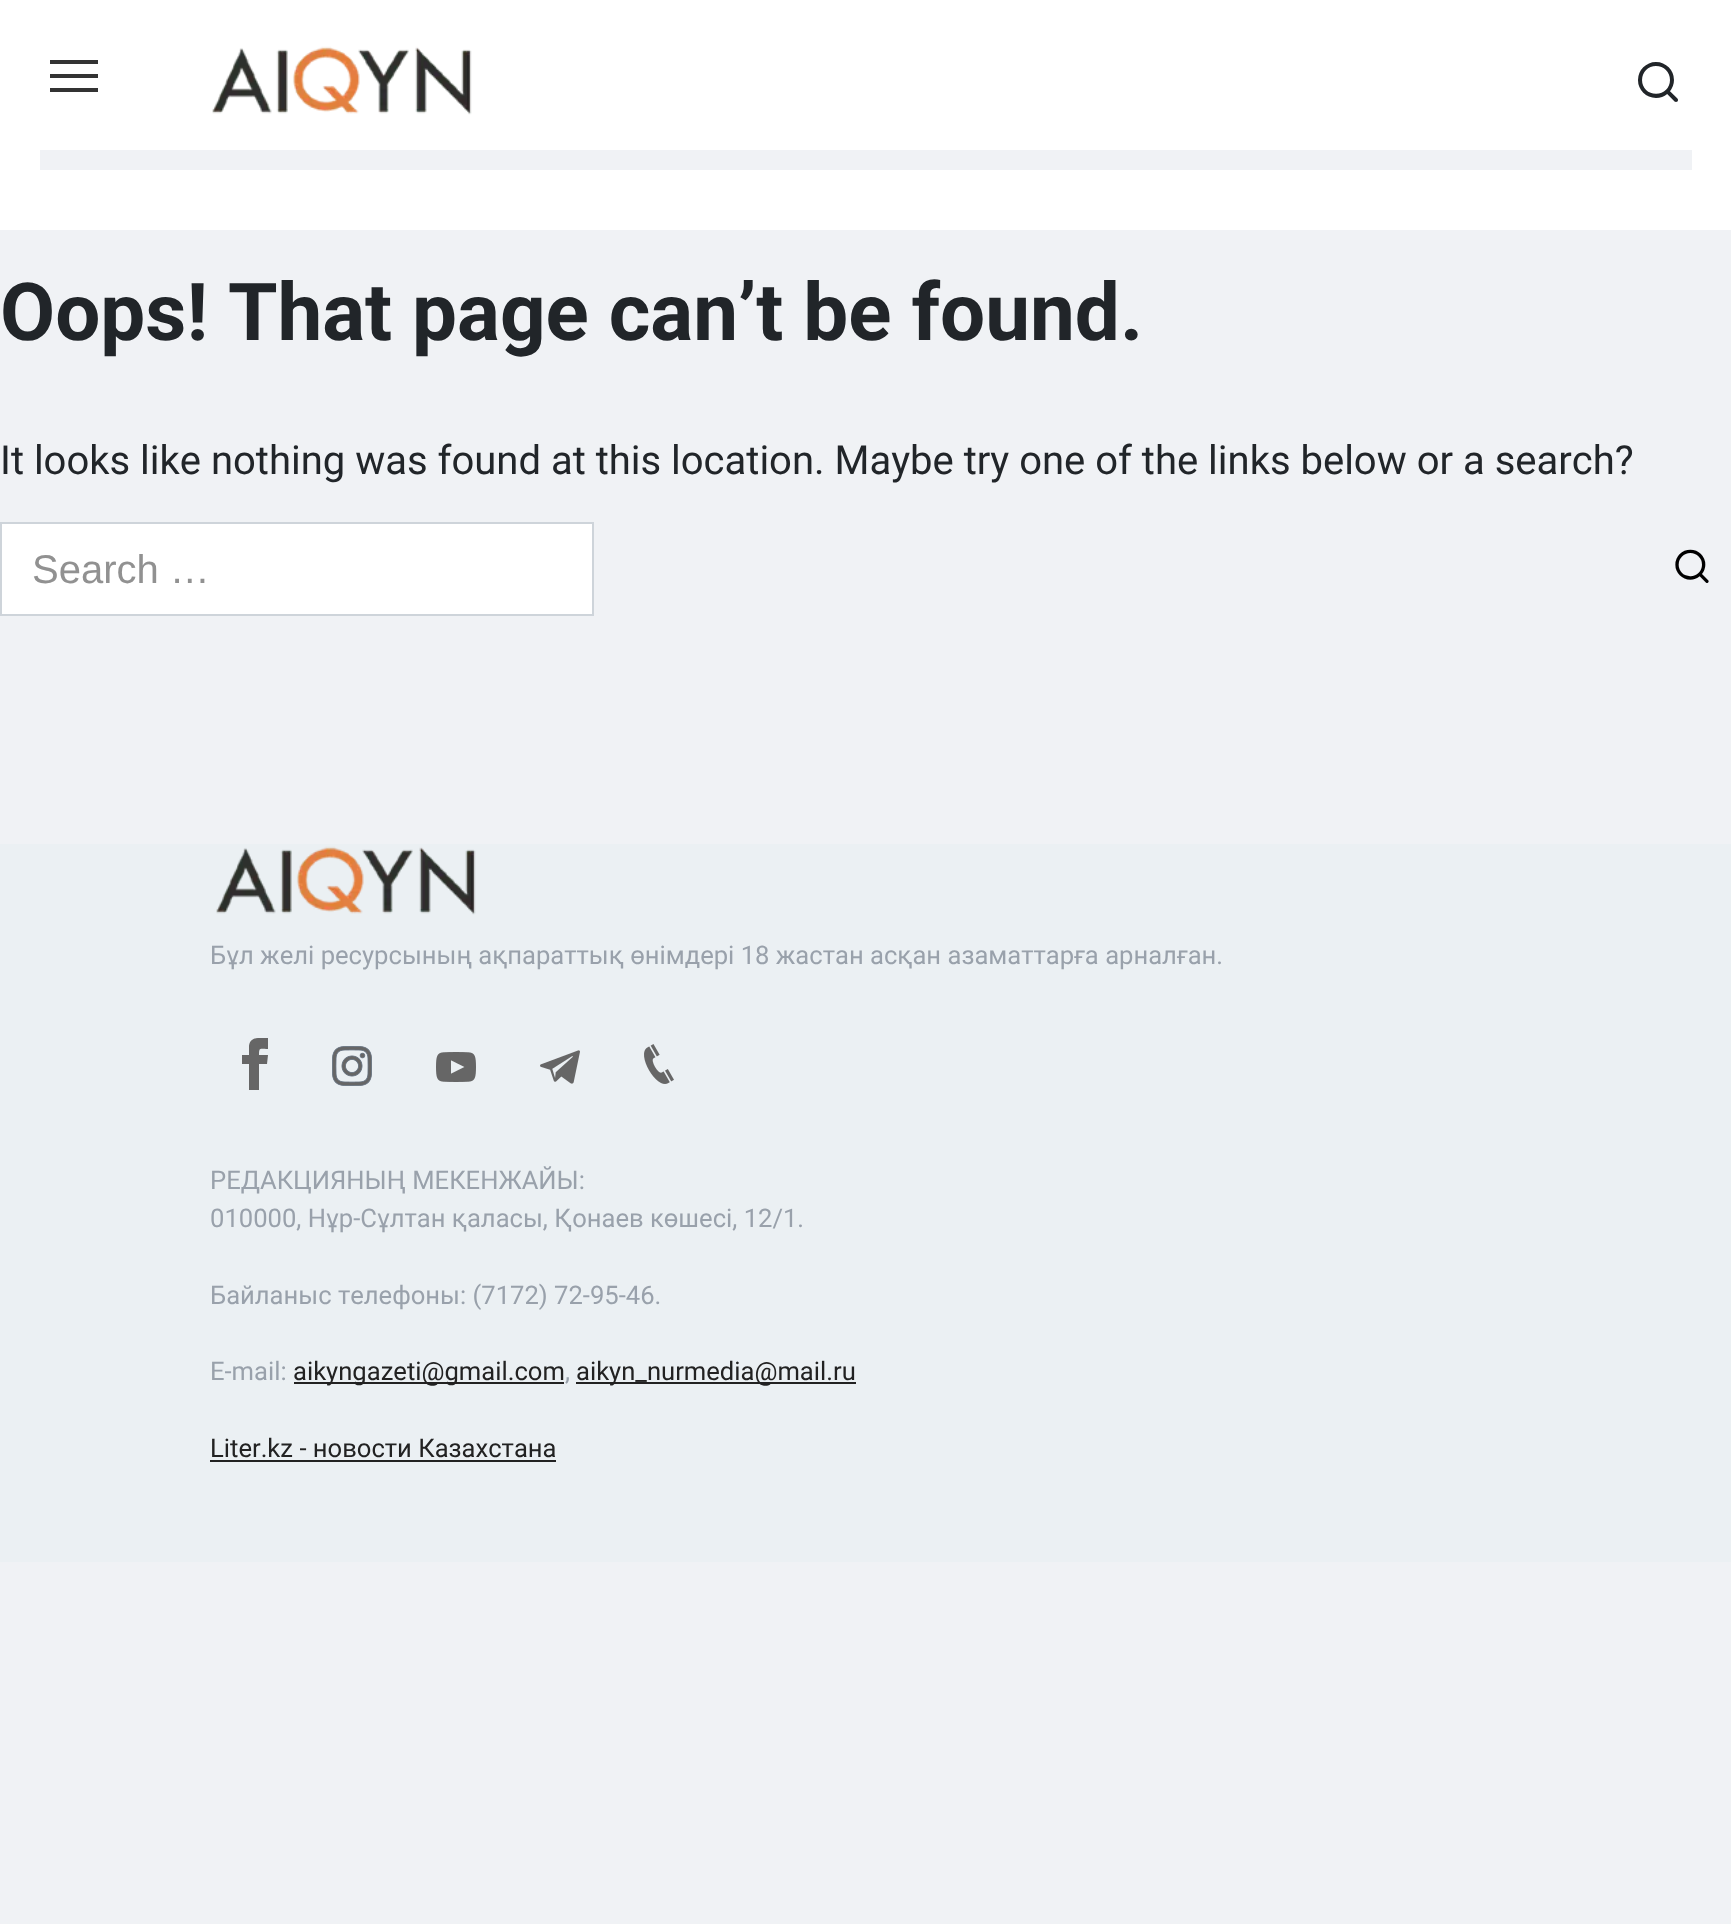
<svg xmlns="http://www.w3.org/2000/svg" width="1731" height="1924">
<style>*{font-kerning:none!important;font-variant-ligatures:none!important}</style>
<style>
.a{font:48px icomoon;fill:#212529}
.b{font:bold 80px Roboto;fill:#212529}
.c{font:40px Roboto;fill:#212529}
.d{font:40px Liberation Sans;fill:#919191}
.e{font:40px icomoon;fill:#000}
.f{font:25.6px Roboto;fill:#99a1ab}
.g{font:25.6px Roboto;fill:#222}
</style>
<defs>
<clipPath id="clip1"><path d="M242 1038h26v52H242z"/></clipPath>
</defs>
<rect width="100%" height="100%" fill="#f0f2f5"/>
<path fill="#fff" d="M0 0h1731v230H0z"/>
<path fill="#333" d="M50 60h48v4H50z"/>
<path fill="#333" d="M50 74h48v4H50z"/>
<path fill="#333" d="M50 88h48v4H50z"/>
<image href="1.png" x="212" y="46" width="260" height="69"/>
<path fill="#f0f2f5" d="M40 150h1652v20H40z"/>
<path fill="#fff" stroke="#ced4da" stroke-width="2" d="M1 523h592v92H1z"/>
<path fill="#ebf0f3" d="M0 844h1731v718H0z"/>
<image href="2.png" x="216" y="846" width="260" height="69"/>
<g clip-path="url(#clip1)">
<path fill="#666" fill-rule="evenodd" d="M249 1055h-7v9h7v26h10v-26h8l1-9h-9c0-8 1-6 9-6v-11c-7 0-18-2-19 8z"/>
</g>
<image href="3.png" x="332" y="1046" width="40" height="40"/>
<image href="4.png" x="436" y="1052" width="40" height="30"/>
<image href="5.png" x="540" y="1050" width="40" height="34"/>
<image href="6.png" x="644" y="1044" width="30" height="40"/>
<path fill="#222" d="M294 1382h270v2H294z"/>
<path fill="#222" d="M576 1382h280v2H576z"/>
<path fill="#222" d="M210 1460h346v2H210z"/>
<text class="a" x="1634" y="102">🔍</text>
<text class="b" x="0" y="340">Oops! That page can’t be found.</text>
<text class="c" x="0" y="474">It looks like nothing was found at this location. Maybe try one of the links below or a search?</text>
<text class="d" x="32" y="583">Search …</text>
<text class="e" x="1672" y="583">🔍</text>
<text class="f" x="210" y="964">Бұл желі ресурсының ақпараттық өнімдері 18 жастан асқан азаматтарға арналған.</text>
<text class="f" x="210" y="1189">РЕДАКЦИЯНЫҢ МЕКЕНЖАЙЫ:</text>
<text class="f" x="210" y="1227">010000, Нұр-Сұлтан қаласы, Қонаев көшесі, 12/1.</text>
<text class="f" x="210" y="1304">Байланыс телефоны: (7172) 72-95-46.</text>
<text class="f" x="210" y="1380">E-mail:</text>
<text class="g" x="293" y="1380">aikyngazeti@gmail.com</text>
<text class="f" x="565" y="1380">,</text>
<text class="g" x="576" y="1380">aikyn_nurmedia@mail.ru</text>
<text class="g" x="210" y="1457">Liter.kz - новости Казахстана</text>
</svg>
